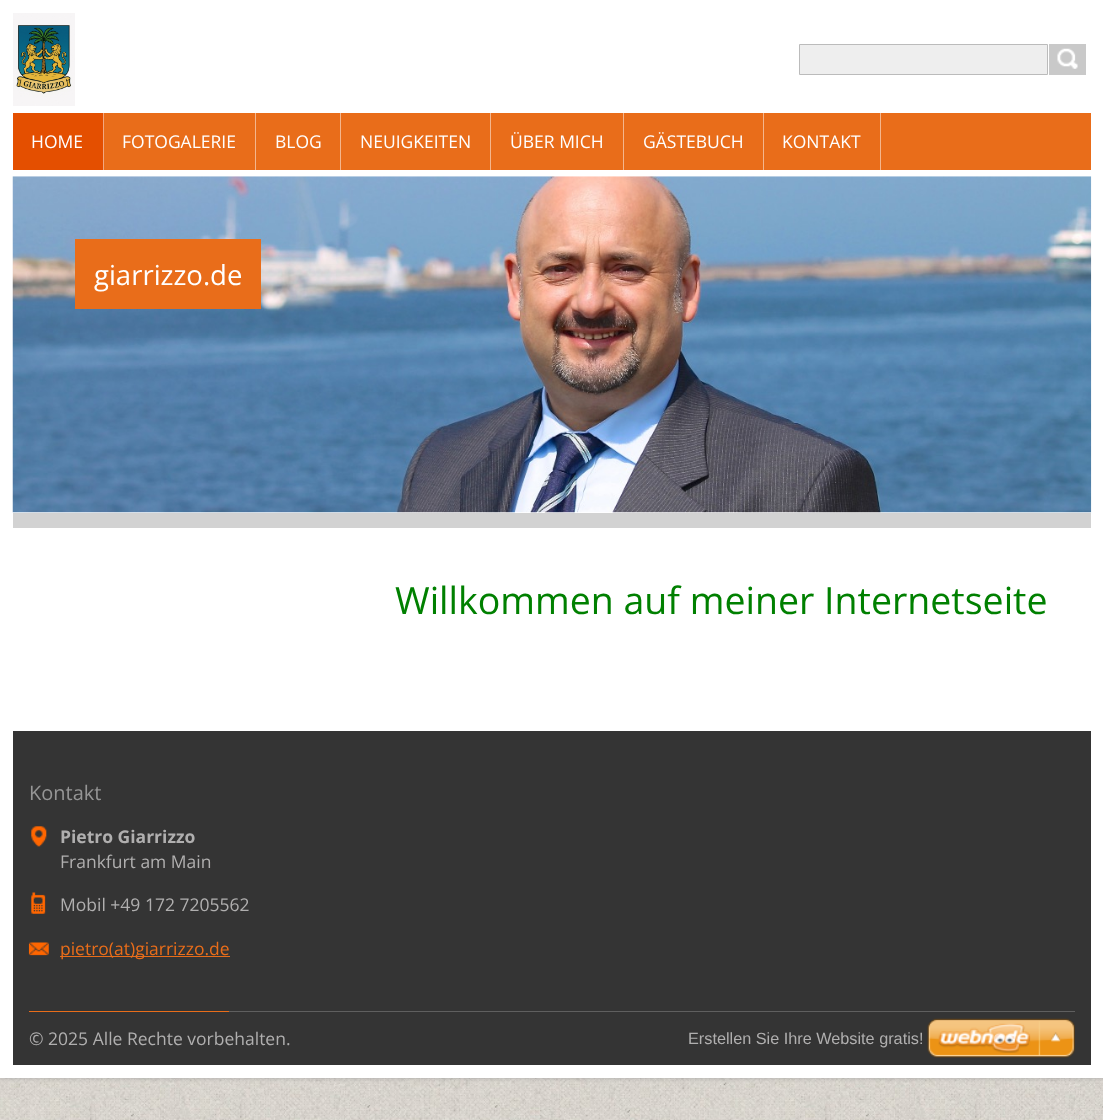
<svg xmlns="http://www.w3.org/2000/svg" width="1103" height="1120">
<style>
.a{font:17.5px Open Sans;fill:#fff}
.b{font:27.5px Open Sans;fill:#fff}
.c{font:37.5px Open Sans;fill:#008000}
.d{font:20px Open Sans;fill:#959595}
.e{font:bold 17.5px Open Sans;fill:#b0afaf}
.f{font:17.5px Open Sans;fill:#b0afaf}
.g{font:17.5px Open Sans;fill:#e96d1a}
.h{font:16.25px Liberation Sans;fill:#b0afaf}
</style>
<rect width="100%" height="100%" fill="#fff"/>
<image href="1.png" x="0" y="1078" width="1103" height="42"/>
<path fill="#989898bf" filter="blur(2.5px)" d="M0 0h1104v1078H0z"/>
<path fill="#fff" d="M0 0h1103v1078H0z"/>
<path fill="#eee" stroke="#bbb" d="M799.5 44.5h248v30H799.5z"/>
<path fill="#c9c9c9" d="M1049 44h37v31H1049z"/>
<image href="2.png" x="1057" y="48" width="21" height="21"/>
<path fill="#e96d1a" d="M104 113h987v57H104z"/>
<path fill="#e44f00" d="M13 113h90v57H13z"/>
<path fill="#f2a780" d="M103 113h1v57H103z"/>
<path fill="#f4b68d" d="M255 113h1v57H255z"/>
<path fill="#f4b68d" d="M340 113h1v57H340z"/>
<path fill="#f4b68d" d="M490 113h1v57H490z"/>
<path fill="#f4b68d" d="M623 113h1v57H623z"/>
<path fill="#f4b68d" d="M763 113h1v57H763z"/>
<path fill="#f4b68d" d="M880 113h1v57H880z"/>
<image href="3.png" x="13" y="13" width="62" height="93"/>
<path fill="#d2d2d2" d="M13 513h1078v15H13z"/>
<image href="4.png" x="12" y="176" width="1080" height="337"/>
<path fill="#e96d1a" d="M75 239h186v70H75z"/>
<path fill="#343434" d="M13 731h1078v334H13z"/>
<image href="5.png" x="31" y="826" width="16" height="21"/>
<image href="6.png" x="31" y="892" width="15" height="22"/>
<image href="7.png" x="28" y="942" width="21" height="14"/>
<path fill="#e96d1a" d="M60 956h170v1H60z"/>
<path fill="#5f5f5f" d="M229 1011h846v1H229z"/>
<path fill="#e96d1a" d="M29 1011h200v1H29z"/>
<image href="8.png" x="927" y="1018" width="148" height="40"/>
<text class="a" x="31" y="148">HOME</text>
<text class="a" x="122" y="148">FOTOGALERIE</text>
<text class="a" x="275" y="148">BLOG</text>
<text class="a" x="360" y="148">NEUIGKEITEN</text>
<text class="a" x="510" y="148">ÜBER MICH</text>
<text class="a" x="643" y="148">GÄSTEBUCH</text>
<text class="a" x="782" y="148">KONTAKT</text>
<text class="b" x="94" y="285">giarrizzo.de</text>
<text class="c" x="395" y="614">Willkommen auf meiner Internetseite</text>
<text class="d" x="29" y="800">Kontakt</text>
<text class="e" x="60" y="843">Pietro Giarrizzo</text>
<text class="f" x="60" y="868">Frankfurt am Main</text>
<text class="f" x="60" y="911">Mobil +49 172 7205562</text>
<text class="g" x="60" y="955">pietro(at)giarrizzo.de</text>
<text class="f" x="29" y="1045">© 2025 Alle Rechte vorbehalten.</text>
<text class="h" x="688" y="1044">Erstellen Sie Ihre Website gratis!</text>
</svg>
